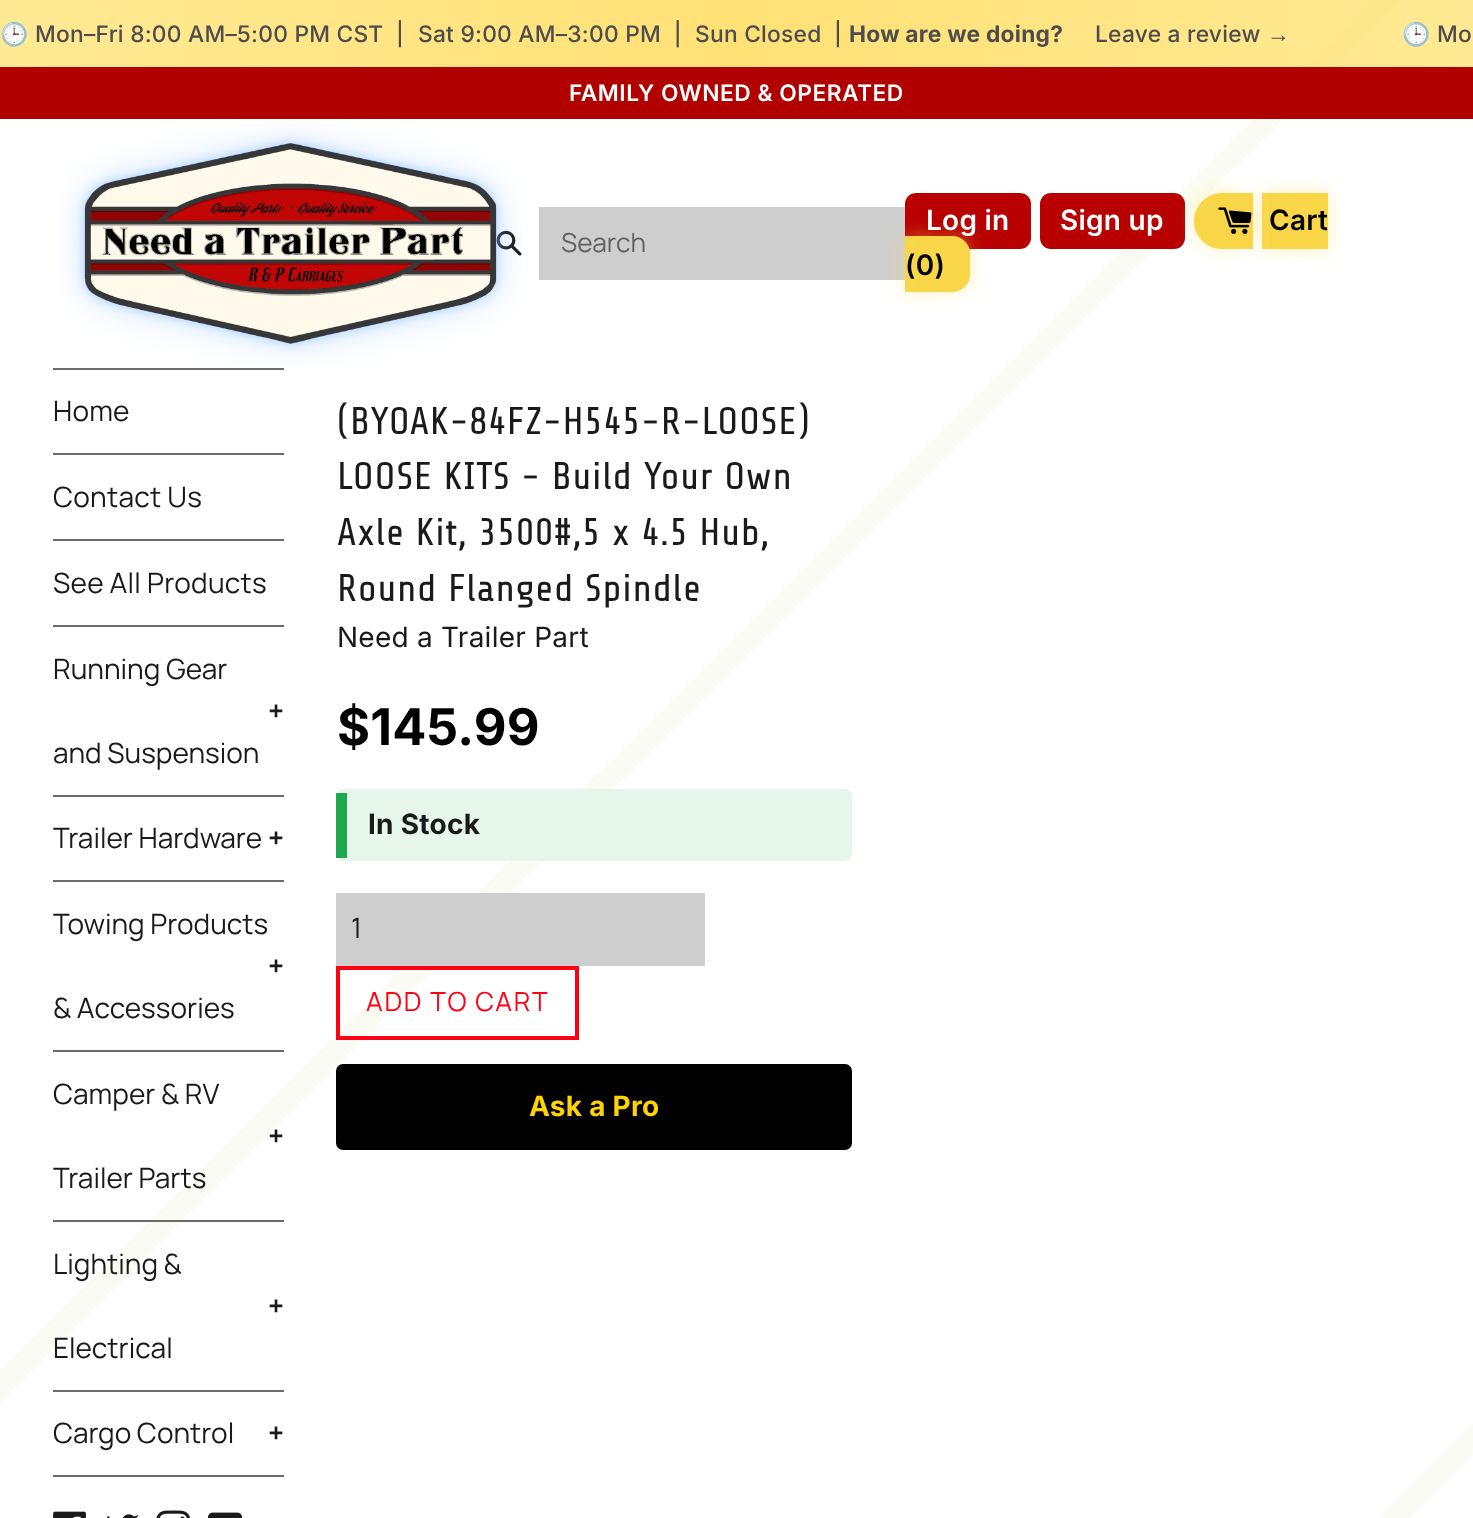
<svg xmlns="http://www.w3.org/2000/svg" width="1473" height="1518">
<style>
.a{font:22.75px Noto Color Emoji;letter-spacing:0.25px;fill:#4d4d4d}
.b{font:500 22.75px Inter;letter-spacing:0.25px;fill:#4d4d4d}
.c{font:bold 22.75px Inter;letter-spacing:0.25px;fill:#4d4d4d}
.d{font:22.75px Liberation Sans;letter-spacing:0.25px;fill:#4d4d4d}
.e{font:600 22.75px Inter;letter-spacing:0.5px;fill:#fff}
.f{font:26.25px Manrope;fill:#626262}
.g{font:600 28px Inter;letter-spacing:0.25px;fill:#fff}
.h{font:600 28px Inter;letter-spacing:0.25px;fill:#000}
.i{font:28px Manrope;letter-spacing:0.25px;fill:#1a1a1a}
.j{font:28px Manrope;fill:#1a1a1a}
.k{font:bold 28px Manrope;fill:#1a1a1a}
.l{font:38.5px Share Tech;letter-spacing:0.75px;fill:#1a1a1a}
.m{font:28px Inter;letter-spacing:0.25px;fill:#1a1a1a}
.n{font:bold 50.5px Inter;letter-spacing:0.25px;fill:#000}
.o{font:bold 28px Inter;letter-spacing:0.25px;fill:#1a1a1a}
.p{font:26.25px Manrope;letter-spacing:1.75px;fill:#ff0015}
.q{font:bold 28px Inter;letter-spacing:0.25px;fill:#ffd400}
</style>
<defs>
<linearGradient id="g1" gradientUnits="userSpaceOnUse" x1="-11" y1="11" x2="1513" y2="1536"><stop offset="0" stop-color="#fafcf3"/><stop offset="0" stop-color="#fff"/><stop offset="0" stop-color="#fcfef8"/><stop offset="0" stop-color="#fff"/><stop offset="0.05" stop-color="#fff"/><stop offset="0.05" stop-color="#fafcf3"/><stop offset="0.05" stop-color="#fff"/><stop offset="0.05" stop-color="#fcfef8"/><stop offset="0.05" stop-color="#fff"/><stop offset="0.09" stop-color="#fff"/><stop offset="0.09" stop-color="#fafcf3"/><stop offset="0.09" stop-color="#fff"/><stop offset="0.09" stop-color="#fcfef8"/><stop offset="0.09" stop-color="#fff"/><stop offset="0.14" stop-color="#fff"/><stop offset="0.14" stop-color="#fafcf3"/><stop offset="0.14" stop-color="#fff"/><stop offset="0.14" stop-color="#fcfef8"/><stop offset="0.14" stop-color="#fff"/><stop offset="0.18" stop-color="#fff"/><stop offset="0.18" stop-color="#fafcf3"/><stop offset="0.18" stop-color="#fff"/><stop offset="0.19" stop-color="#fff"/><stop offset="0.19" stop-color="#fcfef8"/><stop offset="0.19" stop-color="#fff"/><stop offset="0.23" stop-color="#fff"/><stop offset="0.23" stop-color="#fafcf3"/><stop offset="0.23" stop-color="#fff"/><stop offset="0.23" stop-color="#fcfef8"/><stop offset="0.23" stop-color="#fff"/><stop offset="0.27" stop-color="#fff"/><stop offset="0.27" stop-color="#fafcf3"/><stop offset="0.27" stop-color="#fff"/><stop offset="0.28" stop-color="#fff"/><stop offset="0.28" stop-color="#fcfef8"/><stop offset="0.28" stop-color="#fff"/><stop offset="0.32" stop-color="#fff"/><stop offset="0.32" stop-color="#fafcf3"/><stop offset="0.32" stop-color="#fff"/><stop offset="0.32" stop-color="#fcfef8"/><stop offset="0.32" stop-color="#fff"/><stop offset="0.36" stop-color="#fff"/><stop offset="0.36" stop-color="#fafcf3"/><stop offset="0.36" stop-color="#fff"/><stop offset="0.37" stop-color="#fff"/><stop offset="0.37" stop-color="#fcfef8"/><stop offset="0.37" stop-color="#fff"/><stop offset="0.41" stop-color="#fff"/><stop offset="0.41" stop-color="#fafcf3"/><stop offset="0.41" stop-color="#fff"/><stop offset="0.41" stop-color="#fcfef8"/><stop offset="0.41" stop-color="#fff"/><stop offset="0.45" stop-color="#fff"/><stop offset="0.45" stop-color="#fafcf3"/><stop offset="0.46" stop-color="#fafcf3"/><stop offset="0.46" stop-color="#fff"/><stop offset="0.46" stop-color="#fcfef8"/><stop offset="0.46" stop-color="#fff"/><stop offset="0.5" stop-color="#fff"/><stop offset="0.5" stop-color="#fafcf3"/><stop offset="0.5" stop-color="#fff"/><stop offset="0.5" stop-color="#fcfef8"/><stop offset="0.5" stop-color="#fff"/><stop offset="0.55" stop-color="#fff"/><stop offset="0.55" stop-color="#fafcf3"/><stop offset="0.55" stop-color="#fff"/><stop offset="0.55" stop-color="#fcfef8"/><stop offset="0.55" stop-color="#fff"/><stop offset="0.59" stop-color="#fff"/><stop offset="0.59" stop-color="#fafcf3"/><stop offset="0.59" stop-color="#fff"/><stop offset="0.59" stop-color="#fcfef8"/><stop offset="0.59" stop-color="#fff"/><stop offset="0.64" stop-color="#fff"/><stop offset="0.64" stop-color="#fafcf3"/><stop offset="0.64" stop-color="#fff"/><stop offset="0.64" stop-color="#fcfef8"/><stop offset="0.64" stop-color="#fff"/><stop offset="0.68" stop-color="#fff"/><stop offset="0.68" stop-color="#fafcf3"/><stop offset="0.68" stop-color="#fff"/><stop offset="0.69" stop-color="#fff"/><stop offset="0.69" stop-color="#fcfef8"/><stop offset="0.69" stop-color="#fff"/><stop offset="0.73" stop-color="#fff"/><stop offset="0.73" stop-color="#fafcf3"/><stop offset="0.73" stop-color="#fff"/><stop offset="0.73" stop-color="#fcfef8"/><stop offset="0.73" stop-color="#fff"/><stop offset="0.77" stop-color="#fff"/><stop offset="0.77" stop-color="#fafcf3"/><stop offset="0.77" stop-color="#fff"/><stop offset="0.78" stop-color="#fff"/><stop offset="0.78" stop-color="#fcfef8"/><stop offset="0.78" stop-color="#fff"/><stop offset="0.82" stop-color="#fff"/><stop offset="0.82" stop-color="#fafcf3"/><stop offset="0.82" stop-color="#fff"/><stop offset="0.82" stop-color="#fcfef8"/><stop offset="0.82" stop-color="#fff"/><stop offset="0.86" stop-color="#fff"/><stop offset="0.86" stop-color="#fafcf3"/><stop offset="0.86" stop-color="#fff"/><stop offset="0.87" stop-color="#fff"/><stop offset="0.87" stop-color="#fcfef8"/><stop offset="0.87" stop-color="#fff"/><stop offset="0.91" stop-color="#fff"/><stop offset="0.91" stop-color="#fafcf3"/><stop offset="0.91" stop-color="#fff"/><stop offset="0.91" stop-color="#fcfef8"/><stop offset="0.91" stop-color="#fff"/><stop offset="0.95" stop-color="#fff"/><stop offset="0.95" stop-color="#fafcf3"/><stop offset="0.96" stop-color="#fafcf3"/><stop offset="0.96" stop-color="#fff"/><stop offset="0.96" stop-color="#fcfef8"/><stop offset="0.96" stop-color="#fff"/><stop offset="1" stop-color="#fff"/></linearGradient>
<linearGradient id="g2" gradientUnits="userSpaceOnUse" x1="0" y1="33" x2="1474" y2="33"><stop offset="0" stop-color="#ffe066" stop-opacity="0.7"/><stop offset="0.5" stop-color="#ffd43b" stop-opacity="0.7"/><stop offset="1" stop-color="#ffe066" stop-opacity="0.7"/></linearGradient>
</defs>
<rect width="100%" height="100%" fill="#fff"/>
<path fill="url(#g1)" d="M0 0h1473v1518H0z"/>
<path fill="url(#g2)" d="M0 0h1473v67H0z"/>
<path fill="#b00000" d="M0 67h1473v52H0z"/>
<image href="2.png" x="496" y="230" width="26" height="26"/>
<image href="1.png" x="59" y="118" width="463" height="249"/>
<path fill="#cecece" d="M539 207h366v73H539z"/>
<rect fill="#b80000" x="905" y="193" width="126" height="56" rx="11"/>
<rect fill="#b80000" x="1040" y="193" width="145" height="56" rx="11"/>
<rect fill="#ffdf5873" filter="blur(9px)" x="1194" y="193" width="59" height="56" rx="28"/>
<path fill="#f9d648" d="M1222 193h31v56h-31c-15.5 0-28-12.5-28-28c0-15.5 12.5-28 28-28z"/>
<path fill="#ffdf5873" filter="blur(9px)" d="M1262 193h7v56H1262z"/>
<path fill="#f9d648" d="M1262 193h7v56H1262z"/>
<path fill="#ffdf5873" filter="blur(9px)" d="M1269 193h59v56H1269z"/>
<path fill="#f9d648" d="M1269 193h59v56H1269z"/>
<path fill="#ffdf5873" filter="blur(9px)" d="M905 236h10v56H905z"/>
<path fill="#f9d648" d="M905 236h10v56H905z"/>
<path fill="#ffdf5873" filter="blur(9px)" d="M915 236h20v56H915z"/>
<image href="3.png" x="1218" y="207" width="34" height="27"/>
<path fill="#6a6a6a" d="M53 368h231v2H53z"/>
<path fill="#6a6a6a" d="M53 453h231v2H53z"/>
<path fill="#6a6a6a" d="M53 539h231v2H53z"/>
<path fill="#6a6a6a" d="M53 625h231v2H53z"/>
<path fill="#6a6a6a" d="M53 795h231v2H53z"/>
<path fill="#6a6a6a" d="M53 880h231v2H53z"/>
<path fill="#6a6a6a" d="M53 1050h231v2H53z"/>
<path fill="#6a6a6a" d="M53 1220h231v2H53z"/>
<path fill="#6a6a6a" d="M53 1390h231v2H53z"/>
<path fill="#6a6a6a" d="M53 1475h231v2H53z"/>
<image href="4.png" x="53" y="1511" width="33" height="7"/>
<image href="5.png" x="107" y="1514" width="32" height="4"/>
<image href="6.png" x="156" y="1510" width="34" height="8"/>
<image href="7.png" x="208" y="1512" width="35" height="6"/>
<rect fill="#e6f6ea" x="336" y="789" width="516" height="72" rx="7"/>
<path fill="#1fa750" d="M336 793h11v65H336z"/>
<path fill="#cecece" d="M336 893h369v73H336z"/>
<path fill="none" stroke="#ff0015" stroke-width="4" d="M338 968h239v70H338z"/>
<rect fill="#000" x="336" y="1064" width="516" height="86" rx="7"/>
<text class="a" x="0" y="42">🕒</text>
<text class="b" xml:space="preserve" x="35" y="42">Mon–Fri 8:00 AM–5:00 PM CST  |</text>
<text class="b" xml:space="preserve" x="418" y="42">Sat 9:00 AM–3:00 PM  |</text>
<text class="b" xml:space="preserve" x="695" y="42">Sun Closed  |</text>
<text class="c" x="849" y="42">How are we doing?</text>
<text class="b" x="1095" y="42">Leave a review</text>
<text class="d" x="1267" y="42">→</text>
<text class="a" x="1402" y="42">🕒</text>
<text class="b" x="1437" y="42">Mo</text>
<text class="e" x="569" y="101">FAMILY OWNED &amp; OPERATED</text>
<text class="f" x="561" y="252">Search</text>
<text class="g" x="926" y="230">Log in</text>
<text class="g" x="1060" y="230">Sign up</text>
<path fill="#f9d648" d="M915 236h20v56H915z"/>
<rect fill="#ffdf5873" filter="blur(9px)" x="935" y="236" width="35" height="56" rx="17.5"/>
<path fill="#f9d648" d="M935 236h17.5c9.5 0 17.5 8 17.5 17.5v21c0 9.5-8 17.5-17.5 17.5h-17.5z"/>
<text class="h" x="1269" y="230">Cart</text>
<text class="h" x="905" y="275">(0)</text>
<text class="i" x="53" y="421">Home</text>
<text class="i" x="53" y="507">Contact Us</text>
<text class="i" x="53" y="593">See All Products</text>
<text class="j" x="53" y="679">Running Gear</text>
<text class="j" x="53" y="763">and Suspension</text>
<text class="k" x="268" y="721">+</text>
<text class="j" x="53" y="848">Trailer Hardware</text>
<text class="k" x="268" y="848">+</text>
<text class="j" x="53" y="934">Towing Products</text>
<text class="j" x="53" y="1018">&amp; Accessories</text>
<text class="k" x="268" y="976">+</text>
<text class="j" x="53" y="1104">Camper &amp; RV</text>
<text class="j" x="53" y="1188">Trailer Parts</text>
<text class="k" x="268" y="1146">+</text>
<text class="j" x="53" y="1274">Lighting &amp;</text>
<text class="j" x="53" y="1358">Electrical</text>
<text class="k" x="268" y="1316">+</text>
<text class="j" x="53" y="1443">Cargo Control</text>
<text class="k" x="268" y="1443">+</text>
<text class="l" x="337" y="434">(BYOAK-84FZ-H545-R-LOOSE)</text>
<text class="l" x="337" y="489">LOOSE KITS - Build Your Own</text>
<text class="l" x="337" y="545">Axle Kit, 3500#,5 x 4.5 Hub,</text>
<text class="l" x="337" y="601">Round Flanged Spindle</text>
<text class="m" x="337" y="647">Need a Trailer Part</text>
<text class="n" x="337" y="745">$145.99</text>
<text class="o" x="368" y="834">In Stock</text>
<text class="j" x="351" y="938">1</text>
<text class="p" x="366" y="1011">ADD TO CART</text>
<text class="q" x="529" y="1116">Ask a Pro</text>
</svg>
